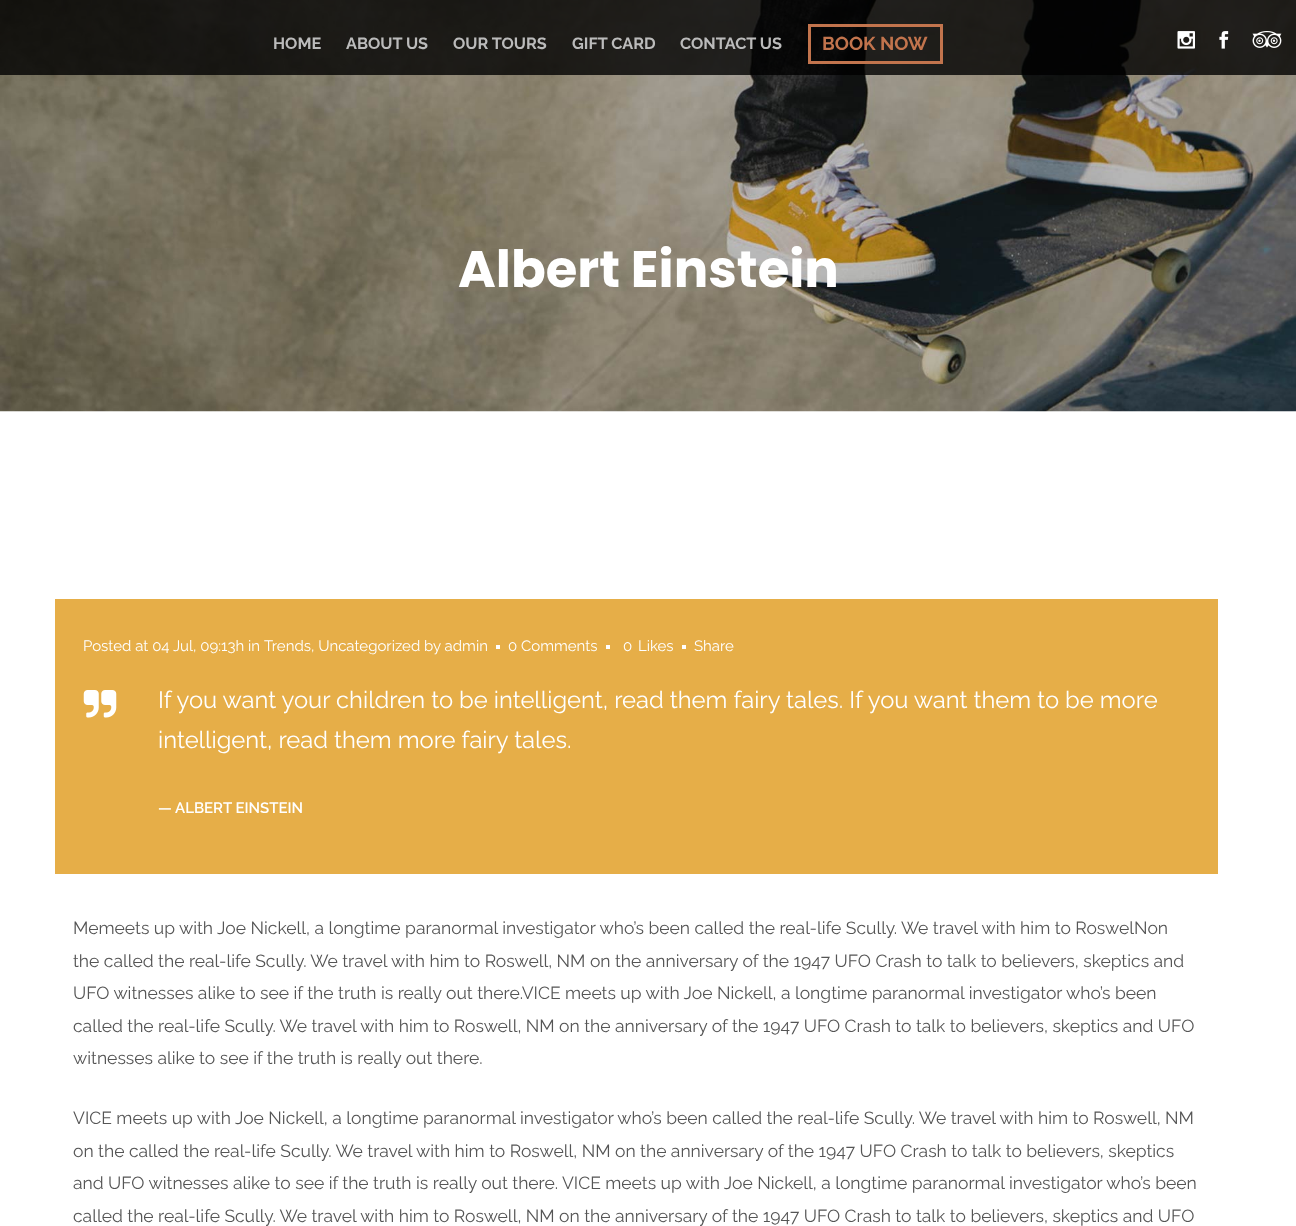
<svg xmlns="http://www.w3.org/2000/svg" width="1296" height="1226">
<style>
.a{font:bold 16.25px Raleway;fill:#bbb}
.b{font:bold 18.75px Raleway;fill:#c2744d}
.c{font:bold 51.25px Poppins;fill:#fff}
.d{font:15px Raleway;fill:#fff}
.e{font:23.75px Raleway;fill:#fff}
.f{font:600 15px Raleway;fill:#fff}
.g{font:17.5px Raleway;fill:#555}
</style>
<rect width="100%" height="100%" fill="#fff"/>
<image href="4.png" x="0" y="0" width="1296" height="412"/>
<path fill="#000000cc" d="M0 0h1296v75H0z"/>
<path fill="none" stroke="#c2744d" stroke-width="3" d="M809.5 25.5h132v37H809.5z"/>
<image href="1.png" x="1177" y="31" width="18" height="18"/>
<image href="2.png" x="1219" y="31" width="10" height="18"/>
<image href="3.png" x="1252" y="31" width="30" height="17"/>
<path fill="#e6ae48" d="M55 599h1163v275H55z"/>
<path fill="#fff" d="M496 645h4v4H496z"/>
<path fill="#fff" d="M606 645h4v4H606z"/>
<path fill="#fff" d="M682 645h4v4H682z"/>
<image href="5.png" x="83" y="690" width="34" height="28"/>
<text class="a" x="273" y="49">HOME</text>
<text class="a" x="346" y="49">ABOUT US</text>
<text class="a" x="453" y="49">OUR TOURS</text>
<text class="a" x="572" y="49">GIFT CARD</text>
<text class="a" x="680" y="49">CONTACT US</text>
<text class="b" x="822" y="50">BOOK NOW</text>
<text class="c" x="458" y="287">Albert Einstein</text>
<text class="d" x="83" y="651">Posted at 04 Jul, 09:13h in</text>
<text class="d" x="264" y="651">Trends, Uncategorized by admin</text>
<text class="d" x="508" y="651">0 Comments</text>
<text class="d" x="623" y="651">0</text>
<text class="d" x="638" y="651">Likes</text>
<text class="d" x="694" y="651">Share</text>
<text class="e" x="158" y="708">If you want your children to be intelligent, read them fairy tales. If you want them to be more</text>
<text class="e" x="158" y="748">intelligent, read them more fairy tales.</text>
<text class="f" x="158" y="813">— ALBERT EINSTEIN</text>
<text class="g" x="73" y="934">Memeets up with Joe Nickell, a longtime paranormal investigator who’s been called the real-life Scully. We travel with him to RoswelNon</text>
<text class="g" x="73" y="967">the called the real-life Scully. We travel with him to Roswell, NM on the anniversary of the 1947 UFO Crash to talk to believers, skeptics and</text>
<text class="g" x="73" y="999">UFO witnesses alike to see if the truth is really out there.VICE meets up with Joe Nickell, a longtime paranormal investigator who’s been</text>
<text class="g" x="73" y="1032">called the real-life Scully. We travel with him to Roswell, NM on the anniversary of the 1947 UFO Crash to talk to believers, skeptics and UFO</text>
<text class="g" x="73" y="1064">witnesses alike to see if the truth is really out there.</text>
<text class="g" x="73" y="1124">VICE meets up with Joe Nickell, a longtime paranormal investigator who’s been called the real-life Scully. We travel with him to Roswell, NM</text>
<text class="g" x="73" y="1157">on the called the real-life Scully. We travel with him to Roswell, NM on the anniversary of the 1947 UFO Crash to talk to believers, skeptics</text>
<text class="g" x="73" y="1189">and UFO witnesses alike to see if the truth is really out there. VICE meets up with Joe Nickell, a longtime paranormal investigator who’s been</text>
<text class="g" x="73" y="1222">called the real-life Scully. We travel with him to Roswell, NM on the anniversary of the 1947 UFO Crash to talk to believers, skeptics and UFO</text>
</svg>
